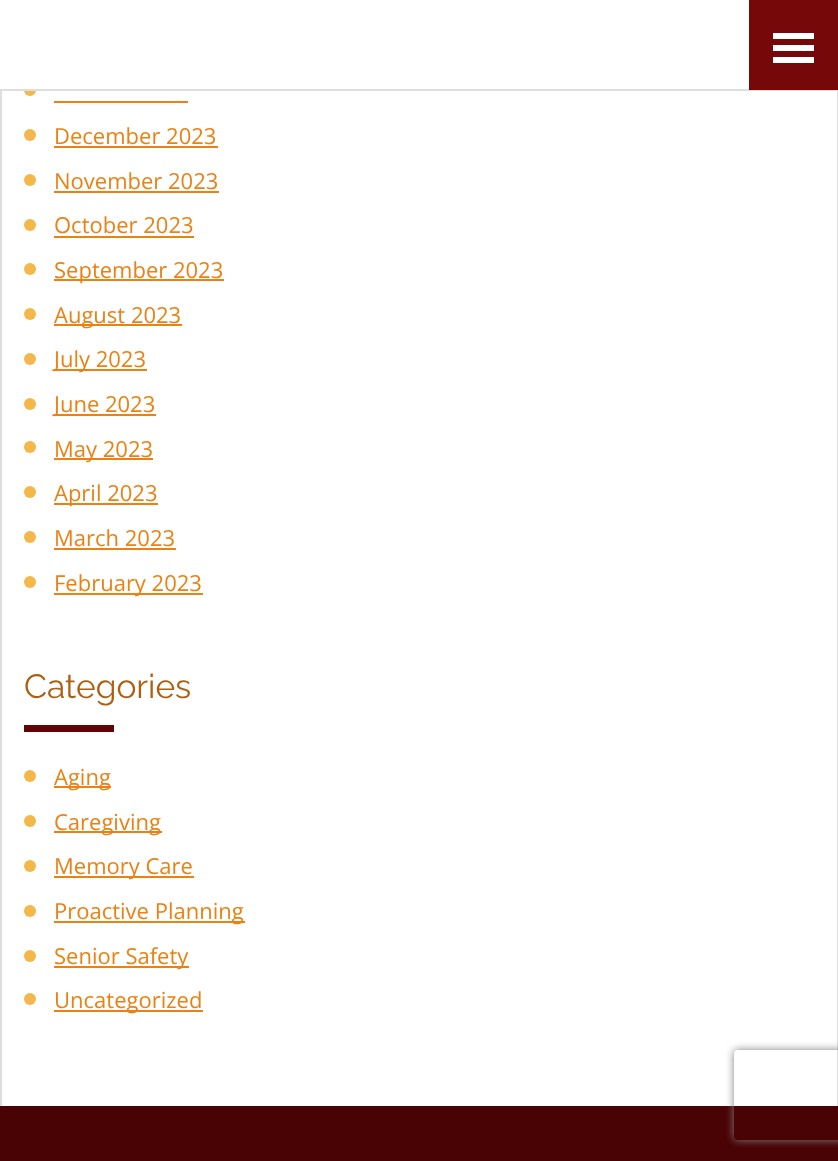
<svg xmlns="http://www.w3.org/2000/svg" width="838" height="1161">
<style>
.a{font:22px Open Sans;fill:#eb8113}
.b{font:33.5px Raleway;fill:#ae5e0f}
</style>
<defs>
<clipPath id="clip1"><path d="M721 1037h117v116h-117zm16 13h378c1.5 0 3 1.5 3 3v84c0 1.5-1.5 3-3 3h-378c-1.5 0-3-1.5-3-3v-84c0-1.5 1.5-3 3-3z" clip-rule="evenodd"/></clipPath>
</defs>
<rect width="100%" height="100%" fill="#fff"/>
<circle fill="#f4b84a" cx="30" cy="90" r="6"/>
<path fill="#fff" d="M24 84h12v5H24z"/>
<path fill="#dedede" d="M0 89h838v2H0z"/>
<path fill="#760809" d="M749 0h89v90H749z"/>
<path fill="#fff" d="M773 63h41v-6h-41zm0-30v6h41v-6zm0 18h41v-6h-41z"/>
<path fill="#dedede" d="M837 91h1v1015H837z"/>
<path fill="#dedede" d="M0 91h2v1015H0z"/>
<path fill="#eb8113" d="M54 101h134v2H54z"/>
<circle fill="#f4b84a" cx="30" cy="135" r="6"/>
<path fill="#eb8113" d="M54 146h164v2H54z"/>
<circle fill="#f4b84a" cx="30" cy="180" r="6"/>
<path fill="#eb8113" d="M54 191h165v2H54z"/>
<circle fill="#f4b84a" cx="30" cy="225" r="6"/>
<path fill="#eb8113" d="M54 236h140v2H54z"/>
<circle fill="#f4b84a" cx="30" cy="269" r="6"/>
<path fill="#eb8113" d="M54 279h170v2H54z"/>
<circle fill="#f4b84a" cx="30" cy="314" r="6"/>
<path fill="#eb8113" d="M54 324h128v2H54z"/>
<circle fill="#f4b84a" cx="30" cy="359" r="6"/>
<path fill="#eb8113" d="M54 369h93v2H54z"/>
<circle fill="#f4b84a" cx="30" cy="404" r="6"/>
<path fill="#eb8113" d="M54 414h102v2H54z"/>
<circle fill="#f4b84a" cx="30" cy="447" r="6"/>
<path fill="#eb8113" d="M54 458h99v2H54z"/>
<circle fill="#f4b84a" cx="30" cy="492" r="6"/>
<path fill="#eb8113" d="M54 503h104v2H54z"/>
<circle fill="#f4b84a" cx="30" cy="537" r="6"/>
<path fill="#eb8113" d="M54 548h122v2H54z"/>
<circle fill="#f4b84a" cx="30" cy="582" r="6"/>
<path fill="#eb8113" d="M54 593h149v2H54z"/>
<path fill="#620405" d="M24 725h90v7H24z"/>
<circle fill="#f4b84a" cx="30" cy="776" r="6"/>
<path fill="#eb8113" d="M54 786h57v2H54z"/>
<circle fill="#f4b84a" cx="30" cy="821" r="6"/>
<path fill="#eb8113" d="M54 831h108v2H54z"/>
<circle fill="#f4b84a" cx="30" cy="866" r="6"/>
<path fill="#eb8113" d="M54 876h140v2H54z"/>
<circle fill="#f4b84a" cx="30" cy="911" r="6"/>
<path fill="#eb8113" d="M54 921h191v2H54z"/>
<circle fill="#f4b84a" cx="30" cy="956" r="6"/>
<path fill="#eb8113" d="M54 966h135v2H54z"/>
<circle fill="#f4b84a" cx="30" cy="999" r="6"/>
<path fill="#eb8113" d="M54 1010h149v2H54z"/>
<path fill="#490304" d="M0 1106h838v55H0z"/>
<g clip-path="url(#clip1)">
<rect fill="#808080" filter="blur(4px)" x="734" y="1050" width="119" height="90" rx="3"/>
</g>
<text class="a" x="54" y="144">December 2023</text>
<text class="a" x="54" y="189">November 2023</text>
<text class="a" x="54" y="233">October 2023</text>
<text class="a" x="54" y="278">September 2023</text>
<text class="a" x="54" y="323">August 2023</text>
<text class="a" x="54" y="367">July 2023</text>
<text class="a" x="54" y="412">June 2023</text>
<text class="a" x="54" y="457">May 2023</text>
<text class="a" x="54" y="501">April 2023</text>
<text class="a" x="54" y="546">March 2023</text>
<text class="a" x="54" y="591">February 2023</text>
<text class="b" x="24" y="698">Categories</text>
<text class="a" x="54" y="785">Aging</text>
<text class="a" x="54" y="830">Caregiving</text>
<text class="a" x="54" y="874">Memory Care</text>
<text class="a" x="54" y="919">Proactive Planning</text>
<text class="a" x="54" y="964">Senior Safety</text>
<text class="a" x="54" y="1008">Uncategorized</text>
</svg>
